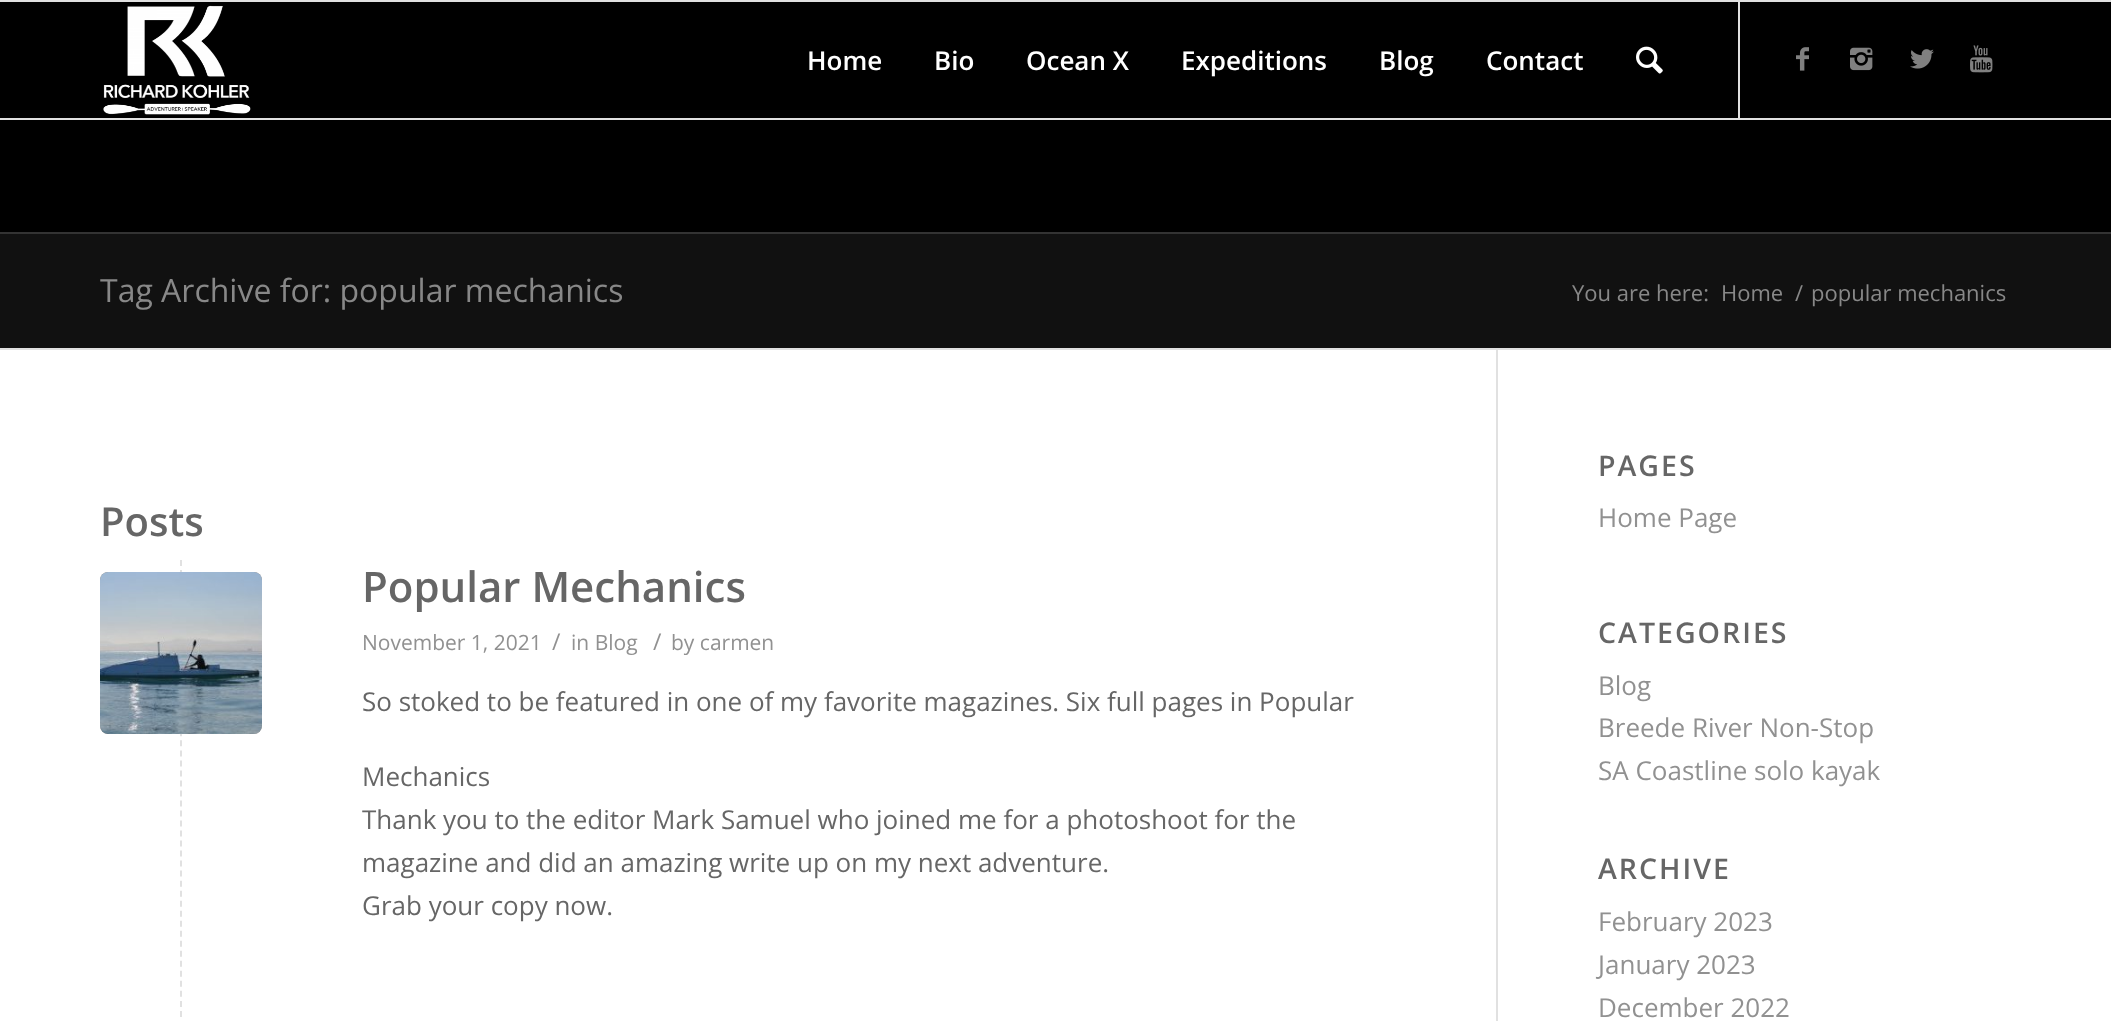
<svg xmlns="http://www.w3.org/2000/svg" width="2111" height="1021">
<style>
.a{font:600 26px Open Sans;fill:#fff}
.b{font:32px Open Sans;fill:#888}
.c{font:22px Open Sans;fill:#888}
.d{font:600 40px Open Sans;fill:#666}
.e{font:600 42px Open Sans;fill:#666}
.f{font:21px Open Sans;fill:#919191}
.g{font:23px Open Sans;fill:#919191}
.h{font:26px Open Sans;fill:#666}
.i{font:600 28.5px Open Sans;letter-spacing:2px;fill:#666}
.j{font:26px Open Sans;fill:#919191}
</style>
<rect width="100%" height="100%" fill="#000"/>
<path fill="#e1e1e1" d="M0 0h2111v2H0z"/>
<path fill="#e1e1e1" d="M0 118h2111v2H0z"/>
<image href="1.png" x="103" y="5" width="148" height="110"/>
<path fill="#e1e1e1" d="M1738 2h2v116H1738z"/>
<image href="2.png" x="1636" y="46" width="27" height="28"/>
<image href="3.png" x="1796" y="47" width="13" height="24"/>
<image href="4.png" x="1850" y="47" width="23" height="24"/>
<image href="5.png" x="1910" y="49" width="24" height="20"/>
<image href="6.png" x="1970" y="45" width="23" height="28"/>
<path fill="#111" d="M0 234h2111v114H0z"/>
<path fill="#333" d="M0 232h2111v2H0z"/>
<path fill="#fff" d="M0 350h2111v671H0z"/>
<path fill="#e1e1e1" d="M0 348h2111v2H0z"/>
<path fill="#e1e1e1" d="M1496 350h2v671H1496z"/>
<path fill="none" stroke="#e1e1e1" stroke-width="2" stroke-dasharray="6 4.02" d="M181 560v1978"/>
<rect fill="#919191" x="100" y="572" width="162" height="162" rx="8"/>
<image href="7.png" x="100" y="572" width="162" height="162"/>
<text class="a" x="807" y="70">Home</text>
<text class="a" x="934" y="70">Bio</text>
<text class="a" x="1026" y="70">Ocean X</text>
<text class="a" x="1181" y="70">Expeditions</text>
<text class="a" x="1379" y="70">Blog</text>
<text class="a" x="1486" y="70">Contact</text>
<text class="b" x="100" y="302">Tag Archive for: popular mechanics</text>
<text class="c" x="1572" y="301">You are here:</text>
<text class="c" x="1721" y="301">Home</text>
<text class="c" x="1795" y="301">/</text>
<text class="c" x="1811" y="301">popular mechanics</text>
<text class="d" x="100" y="536">Posts</text>
<text class="e" x="362" y="602">Popular Mechanics</text>
<text class="f" x="362" y="650">November 1, 2021</text>
<text class="g" x="552" y="650">/</text>
<text class="f" x="571" y="650">in Blog</text>
<text class="g" x="653" y="650">/</text>
<text class="f" x="671" y="650">by carmen</text>
<text class="h" x="362" y="711">So stoked to be featured in one of my favorite magazines. Six full pages in Popular</text>
<text class="h" x="362" y="786">Mechanics</text>
<text class="h" x="362" y="829">Thank you to the editor Mark Samuel who joined me for a photoshoot for the</text>
<text class="h" x="362" y="872">magazine and did an amazing write up on my next adventure.</text>
<text class="h" x="362" y="915">Grab your copy now.</text>
<text class="i" x="1598" y="476">PAGES</text>
<text class="j" x="1598" y="527">Home Page</text>
<text class="i" x="1598" y="643">CATEGORIES</text>
<text class="j" x="1598" y="695">Blog</text>
<text class="j" x="1598" y="737">Breede River Non-Stop</text>
<text class="j" x="1598" y="780">SA Coastline solo kayak</text>
<text class="i" x="1598" y="879">ARCHIVE</text>
<text class="j" x="1598" y="931">February 2023</text>
<text class="j" x="1598" y="974">January 2023</text>
<text class="j" x="1598" y="1017">December 2022</text>
</svg>
